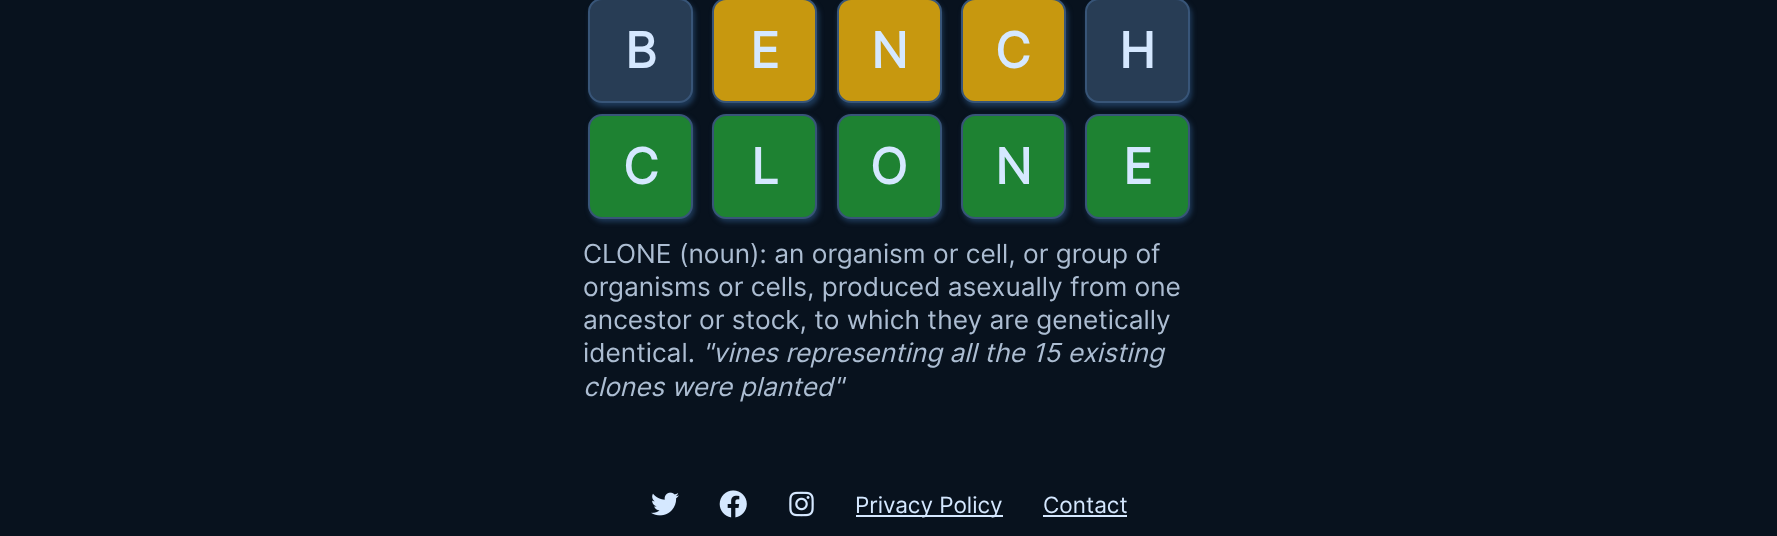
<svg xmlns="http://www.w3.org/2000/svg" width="1777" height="536">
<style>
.a{font:bold 49px Inter;fill:#d5e8ff}
.b{font:26.25px Inter;fill:#acbdd2}
.c{font:italic 26.25px Inter;fill:#acbdd2}
.d{font:22.5px Inter;fill:#d5e8ff}
</style>
<rect width="100%" height="100%" fill="#08121e"/>
<rect fill="#1d3857" filter="blur(2.5px)" x="590" y="2" width="105" height="105" rx="14"/>
<rect fill="#283d55" stroke="#385578" stroke-width="2" x="589" y="-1" width="103" height="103" rx="13"/>
<rect fill="#1d3857" filter="blur(2.5px)" x="714" y="2" width="105" height="105" rx="14"/>
<rect fill="#c7980f" stroke="#385578" stroke-width="2" x="713" y="-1" width="103" height="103" rx="13"/>
<rect fill="#1d3857" filter="blur(2.5px)" x="838" y="2" width="105" height="105" rx="14"/>
<rect fill="#c7980f" stroke="#385578" stroke-width="2" x="838" y="-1" width="103" height="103" rx="13"/>
<rect fill="#1d3857" filter="blur(2.5px)" x="963" y="2" width="105" height="105" rx="14"/>
<rect fill="#c7980f" stroke="#385578" stroke-width="2" x="962" y="-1" width="103" height="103" rx="13"/>
<rect fill="#1d3857" filter="blur(2.5px)" x="1087" y="2" width="105" height="105" rx="14"/>
<rect fill="#283d55" stroke="#385578" stroke-width="2" x="1086" y="-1" width="103" height="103" rx="13"/>
<rect fill="#1d3857" filter="blur(2.5px)" x="590" y="117" width="105" height="105" rx="14"/>
<rect fill="#1e8232" stroke="#385578" stroke-width="2" x="589" y="115" width="103" height="103" rx="13"/>
<rect fill="#1d3857" filter="blur(2.5px)" x="714" y="117" width="105" height="105" rx="14"/>
<rect fill="#1e8232" stroke="#385578" stroke-width="2" x="713" y="115" width="103" height="103" rx="13"/>
<rect fill="#1d3857" filter="blur(2.5px)" x="838" y="117" width="105" height="105" rx="14"/>
<rect fill="#1e8232" stroke="#385578" stroke-width="2" x="838" y="115" width="103" height="103" rx="13"/>
<rect fill="#1d3857" filter="blur(2.5px)" x="963" y="117" width="105" height="105" rx="14"/>
<rect fill="#1e8232" stroke="#385578" stroke-width="2" x="962" y="115" width="103" height="103" rx="13"/>
<rect fill="#1d3857" filter="blur(2.5px)" x="1087" y="117" width="105" height="105" rx="14"/>
<rect fill="#1e8232" stroke="#385578" stroke-width="2" x="1086" y="115" width="103" height="103" rx="13"/>
<image href="1.png" x="651" y="492" width="28" height="24"/>
<image href="2.png" x="719" y="490" width="28" height="28"/>
<image href="3.png" x="789" y="491" width="25" height="26"/>
<path fill="#d5e8ff" d="M856 515h147v2H856z"/>
<path fill="#d5e8ff" d="M1043 515h84v2H1043z"/>
<text class="a" x="625" y="68">B</text>
<text class="a" x="750" y="68">E</text>
<text class="a" x="871" y="68">N</text>
<text class="a" x="995" y="68">C</text>
<text class="a" x="1119" y="68">H</text>
<text class="a" x="623" y="184">C</text>
<text class="a" x="751" y="184">L</text>
<text class="a" x="870" y="184">O</text>
<text class="a" x="995" y="184">N</text>
<text class="a" x="1123" y="184">E</text>
<text class="b" x="583" y="263">CLONE (noun): an organism or cell, or group of</text>
<text class="b" x="583" y="296">organisms or cells, produced asexually from one</text>
<text class="b" x="583" y="329">ancestor or stock, to which they are genetically</text>
<text class="b" x="583" y="362">identical.</text>
<text class="c" x="702" y="362">"vines representing all the 15 existing</text>
<text class="c" x="583" y="396">clones were planted"</text>
<text class="d" x="855" y="513">Privacy Policy</text>
<text class="d" x="1043" y="513">Contact</text>
</svg>
